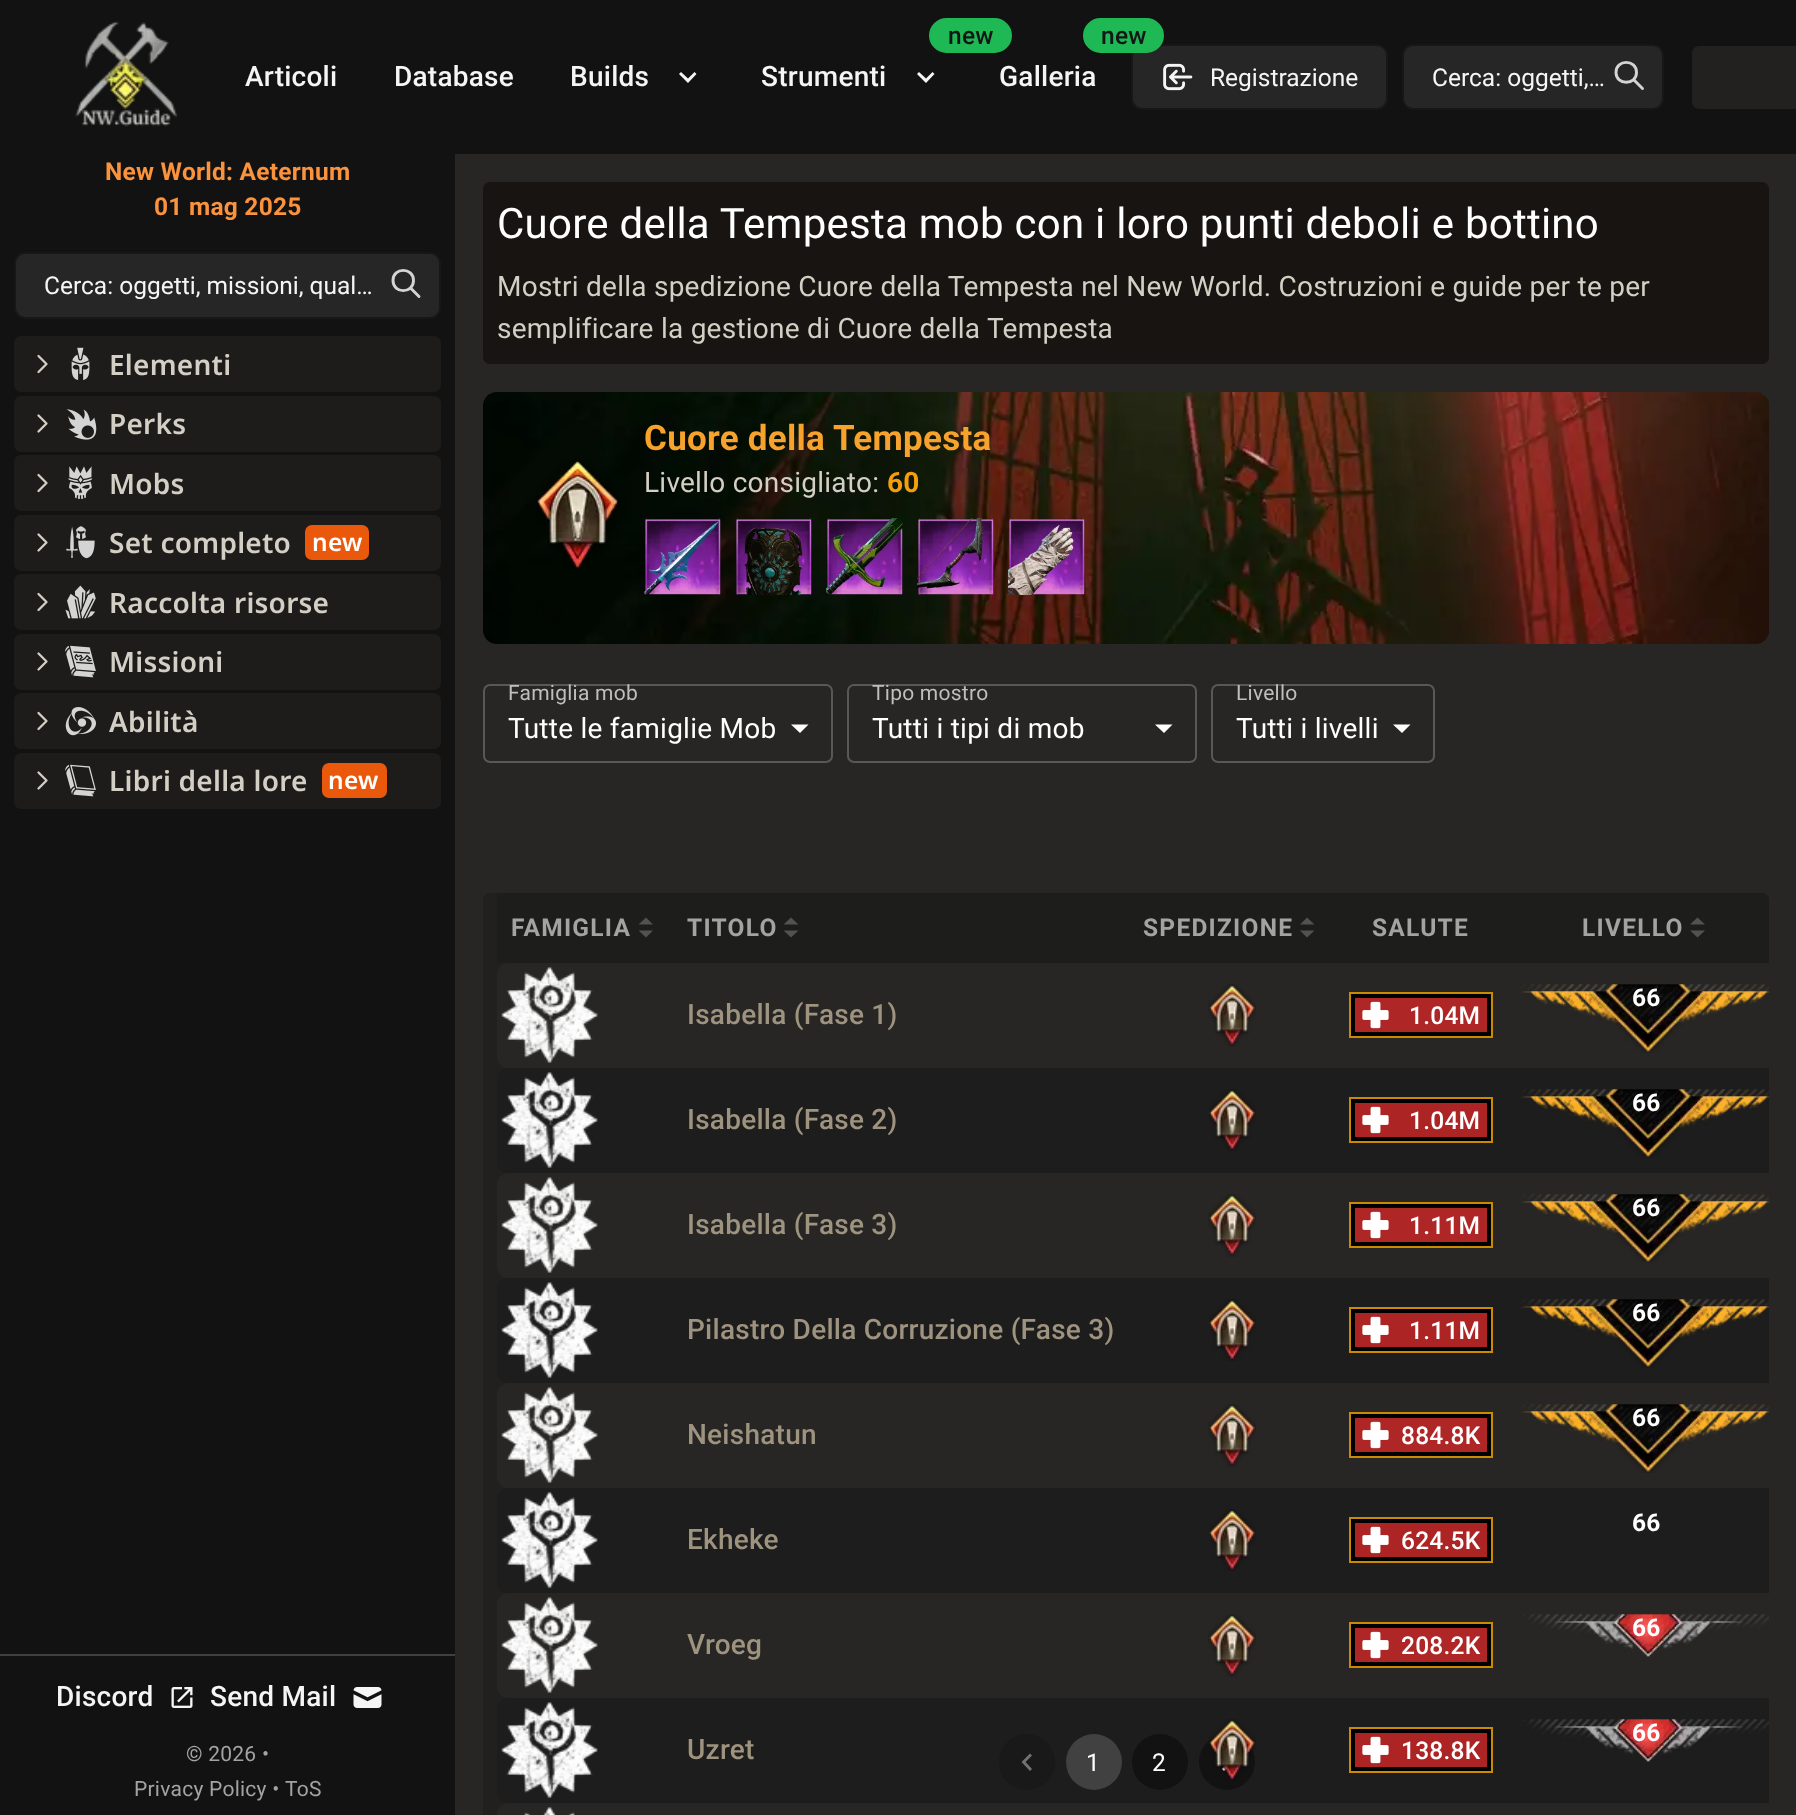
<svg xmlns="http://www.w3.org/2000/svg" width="1796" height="1815">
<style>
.a{font:500 28px Roboto;letter-spacing:0.25px;fill:#f5f5f5}
.b{font:500 24.5px Roboto;letter-spacing:0.25px;fill:#131616}
.c{font:24.5px Roboto;fill:#f5f5f5}
.d{font:bold 24.5px Roboto;letter-spacing:0.25px;fill:#fb923c}
.e{font:600 28px Noto Sans;letter-spacing:0.25px;fill:#d4cfc4}
.f{font:600 24.5px Noto Sans;letter-spacing:0.25px;fill:#fff}
.g{font:21px Roboto;letter-spacing:0.25px;fill:#a3a3a3}
.h{font:42px Roboto;letter-spacing:0.25px;fill:#fff}
.i{font:28px Roboto;letter-spacing:0.25px;fill:#d4cfc4}
.j{font:bold 35px Roboto;letter-spacing:0.25px;fill:#f7a22d}
.k{font:bold 28px Roboto;letter-spacing:0.25px;fill:#f59e0b}
.l{font:21px Roboto;letter-spacing:0.25px;fill:#bfbebe}
.m{font:28px Roboto;letter-spacing:0.25px;fill:#fff}
.n{font:bold 24.5px Roboto;letter-spacing:1.25px;fill:#a3a3a3}
.o{font:bold 24.5px Roboto;letter-spacing:0.25px;fill:#fff}
.p{font:500 28px Roboto;letter-spacing:0.25px;fill:#9e937f}
.q{font:500 24.5px Roboto;letter-spacing:0.25px;fill:#fff}
.r{font:24.5px Roboto;letter-spacing:0.25px;fill:#fff}
</style>
<rect width="100%" height="100%" fill="#272624"/>
<path fill="#121212" d="M0 0h1796v154H0z"/>
<image href="1.png" x="75" y="21" width="103" height="106"/>
<path fill="#f5f5f5" d="M681 72l7 6.5l6.5-6.5l2 2l-8.5 9l-9-9z"/>
<rect fill="#1eb854" stroke="#1eb854" stroke-width="2" x="930" y="19" width="81" height="33" rx="16.5"/>
<path fill="#f5f5f5" d="M919 72l7 6.5l6.5-6.5l2 2l-8.5 9l-9-9z"/>
<rect fill="#262626" stroke="#171717" stroke-width="2" x="1132" y="45" width="255" height="64" rx="10"/>
<rect fill="#1eb854" stroke="#1eb854" stroke-width="2" x="1084" y="19" width="79" height="33" rx="16.5"/>
<image href="2.png" x="1163" y="63" width="30" height="28"/>
<rect fill="#262626" stroke="#171717" stroke-width="2" x="1403" y="45" width="260" height="64" rx="10"/>
<path fill="none" stroke="#d4d4d4" stroke-width="2.9" stroke-linecap="round" stroke-linejoin="round" d="M1642.5 88.5l-9-9m3-7c0 13-20.5 13-20.5 0c0-13.5 20.5-13.5 20.5 0z"/>
<rect fill="#272624cc" x="1692" y="46" width="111" height="63" rx="7"/>
<path fill="#121212" d="M0 154h455v1661H0z"/>
<rect fill="#262626" stroke="#171717" stroke-width="2" x="15" y="253" width="425" height="65" rx="10"/>
<path fill="none" stroke="#d4d4d4" stroke-width="2.9" stroke-linecap="round" stroke-linejoin="round" d="M419 296.5l-8.5-8.5m3-7.5c0 13.5-20.5 13.5-20.5 0c0-13.5 20.5-13.5 20.5 0z"/>
<rect fill="#1d1c1b" x="14" y="336" width="427" height="56" rx="7"/>
<path fill="none" stroke="#d4cfc4" stroke-width="2.3" stroke-linecap="round" stroke-linejoin="round" d="M38.5 356l8 8l-8 8"/>
<image href="3.png" x="71" y="347" width="19" height="33"/>
<rect fill="#1d1c1b" x="14" y="396" width="427" height="56" rx="7"/>
<path fill="none" stroke="#d4cfc4" stroke-width="2.3" stroke-linecap="round" stroke-linejoin="round" d="M38.5 415.5l8 8l-8 8"/>
<image href="4.png" x="66" y="409" width="31" height="31"/>
<rect fill="#1d1c1b" x="14" y="455" width="427" height="56" rx="7"/>
<path fill="none" stroke="#d4cfc4" stroke-width="2.3" stroke-linecap="round" stroke-linejoin="round" d="M38.5 475l8 8l-8 8"/>
<image href="5.png" x="68" y="466" width="25" height="33"/>
<rect fill="#1d1c1b" x="14" y="515" width="427" height="56" rx="7"/>
<path fill="none" stroke="#d4cfc4" stroke-width="2.3" stroke-linecap="round" stroke-linejoin="round" d="M38.5 534.5l8 8l-8 8"/>
<image href="6.png" x="66" y="526" width="29" height="33"/>
<rect fill="#ea580c" x="305" y="525" width="64" height="35" rx="7"/>
<rect fill="#1d1c1b" x="14" y="574" width="427" height="56" rx="7"/>
<path fill="none" stroke="#d4cfc4" stroke-width="2.3" stroke-linecap="round" stroke-linejoin="round" d="M38.5 594l8 8l-8 8"/>
<image href="7.png" x="65" y="585" width="31" height="34"/>
<rect fill="#1d1c1b" x="14" y="634" width="427" height="56" rx="7"/>
<path fill="none" stroke="#d4cfc4" stroke-width="2.3" stroke-linecap="round" stroke-linejoin="round" d="M38.5 653.5l8 8l-8 8"/>
<image href="8.png" x="65" y="645" width="31" height="33"/>
<rect fill="#1d1c1b" x="14" y="693" width="427" height="56" rx="7"/>
<path fill="none" stroke="#d4cfc4" stroke-width="2.3" stroke-linecap="round" stroke-linejoin="round" d="M38.5 713l8 8l-8 8"/>
<image href="9.png" x="65" y="707" width="31" height="29"/>
<rect fill="#1d1c1b" x="14" y="753" width="427" height="56" rx="7"/>
<path fill="none" stroke="#d4cfc4" stroke-width="2.3" stroke-linecap="round" stroke-linejoin="round" d="M38.5 772.5l8 8l-8 8"/>
<image href="10.png" x="65" y="764" width="31" height="33"/>
<rect fill="#ea580c" x="322" y="763" width="65" height="35" rx="7"/>
<path fill="#404040" d="M0 1654h455v2H0z"/>
<image href="11.png" x="171" y="1687" width="22" height="21"/>
<image href="12.png" x="353" y="1687" width="29" height="21"/>
<rect fill="#171411" x="483" y="182" width="1286" height="182" rx="7"/>
<image href="13.png" x="483" y="392" width="1286" height="252"/>
<image href="14.png" x="536" y="460" width="83" height="109"/>
<image href="15.png" x="644" y="518" width="77" height="77"/>
<image href="16.png" x="736" y="518" width="76" height="77"/>
<image href="17.png" x="826" y="518" width="77" height="77"/>
<image href="18.png" x="917" y="518" width="77" height="77"/>
<image href="19.png" x="1008" y="518" width="77" height="77"/>
<path fill="#fff" d="M791 724.5l9 8.5l8.5-8.5z"/>
<rect fill="none" stroke="#595856" stroke-width="2" x="484" y="685" width="348" height="77" rx="6"/>
<path fill="#fff" d="M1155 724.5l9 8.5l8.5-8.5z"/>
<rect fill="none" stroke="#595856" stroke-width="2" x="848" y="685" width="348" height="77" rx="6"/>
<path fill="#fff" d="M1393 724.5l9 8.5l8.5-8.5z"/>
<rect fill="none" stroke="#595856" stroke-width="2" x="1212" y="685" width="222" height="77" rx="6"/>
<path fill="#21201f" d="M490 893h1272c4 0 7 3 7 7v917h-1286v-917c0-4 3-7 7-7z"/>
<path fill="#1a1a1a80" d="M497 893h1265c4 0 7 3 7 7v63h-1272z"/>
<path fill="#525252" d="M638.5 924.5l7.5-7l7 7zm0 6l7.5 7l7-7z"/>
<path fill="#525252" d="M783.5 924.5l7.5-7l7.5 7zm0 6l7.5 7l7.5-7z"/>
<path fill="#525252" d="M1300 924.5l7-7l7.5 7zm0 6l7 7l7.5-7z"/>
<path fill="#525252" d="M1690 924.5l7.5-7l7.5 7zm0 6l7.5 7l7.5-7z"/>
<path fill="#272624" d="M508 963h1261v105h-1261c-6 0-11-5-11-11v-83c0-6 5-11 11-11z"/>
<image href="20.png" x="501" y="967" width="97" height="96"/>
<image href="21.png" x="1208" y="984" width="48" height="63"/>
<image href="22.png" x="1520" y="984" width="250" height="69"/>
<path fill="none" stroke="#ca8a04" stroke-width="2" d="M1350 993h142v44H1350z"/>
<path fill="#af2626" stroke="#000" stroke-width="4" d="M1353 996h136v38H1353z"/>
<image href="23.png" x="1362" y="1001" width="27" height="28"/>
<path fill="#1e1d1d" d="M508 1068h1261v105h-1261c-6 0-11-5-11-11v-83c0-6 5-11 11-11z"/>
<image href="24.png" x="501" y="1072" width="97" height="96"/>
<image href="25.png" x="1209" y="1089" width="47" height="62"/>
<image href="26.png" x="1520" y="1089" width="250" height="69"/>
<path fill="none" stroke="#ca8a04" stroke-width="2" d="M1350 1098h142v44H1350z"/>
<path fill="#ad2424" stroke="#000" stroke-width="4" d="M1353 1101h136v38H1353z"/>
<image href="27.png" x="1362" y="1106" width="27" height="28"/>
<path fill="#272624" d="M508 1173h1261v105h-1261c-6 0-11-5-11-11v-83c0-6 5-11 11-11z"/>
<image href="20.png" x="501" y="1177" width="97" height="96"/>
<image href="21.png" x="1208" y="1194" width="48" height="63"/>
<image href="22.png" x="1520" y="1194" width="250" height="69"/>
<path fill="none" stroke="#ca8a04" stroke-width="2" d="M1350 1203h142v44H1350z"/>
<path fill="#af2626" stroke="#000" stroke-width="4" d="M1353 1206h136v38H1353z"/>
<image href="23.png" x="1362" y="1211" width="27" height="28"/>
<path fill="#1e1d1d" d="M508 1278h1261v105h-1261c-6 0-11-5-11-11v-83c0-6 5-11 11-11z"/>
<image href="24.png" x="501" y="1282" width="97" height="96"/>
<image href="25.png" x="1209" y="1299" width="47" height="62"/>
<image href="26.png" x="1520" y="1299" width="250" height="69"/>
<path fill="none" stroke="#ca8a04" stroke-width="2" d="M1350 1308h142v44H1350z"/>
<path fill="#ad2424" stroke="#000" stroke-width="4" d="M1353 1311h136v38H1353z"/>
<image href="27.png" x="1362" y="1316" width="27" height="28"/>
<path fill="#272624" d="M508 1383h1261v105h-1261c-6 0-11-5-11-11v-83c0-6 5-11 11-11z"/>
<image href="20.png" x="501" y="1387" width="97" height="96"/>
<image href="21.png" x="1208" y="1404" width="48" height="63"/>
<image href="22.png" x="1520" y="1404" width="250" height="69"/>
<path fill="none" stroke="#ca8a04" stroke-width="2" d="M1350 1413h142v44H1350z"/>
<path fill="#af2626" stroke="#000" stroke-width="4" d="M1353 1416h136v38H1353z"/>
<image href="23.png" x="1362" y="1421" width="27" height="28"/>
<path fill="#1e1d1d" d="M508 1488h1261v105h-1261c-6 0-11-5-11-11v-83c0-6 5-11 11-11z"/>
<image href="24.png" x="501" y="1492" width="97" height="96"/>
<image href="25.png" x="1209" y="1509" width="47" height="62"/>
<path fill="none" stroke="#ca8a04" stroke-width="2" d="M1350 1518h142v44H1350z"/>
<path fill="#ad2424" stroke="#000" stroke-width="4" d="M1353 1521h136v38H1353z"/>
<image href="27.png" x="1362" y="1526" width="27" height="28"/>
<path fill="#272624" d="M508 1593h1261v105h-1261c-6 0-11-5-11-11v-83c0-6 5-11 11-11z"/>
<image href="20.png" x="501" y="1597" width="97" height="96"/>
<image href="21.png" x="1208" y="1614" width="48" height="63"/>
<image href="28.png" x="1523" y="1614" width="246" height="43"/>
<path fill="none" stroke="#ca8a04" stroke-width="2" d="M1350 1623h142v44H1350z"/>
<path fill="#af2626" stroke="#000" stroke-width="4" d="M1353 1626h136v38H1353z"/>
<image href="23.png" x="1362" y="1631" width="27" height="28"/>
<path fill="#1e1d1d" d="M508 1698h1261v105h-1261c-6 0-11-5-11-11v-83c0-6 5-11 11-11z"/>
<image href="24.png" x="501" y="1702" width="97" height="96"/>
<circle fill="#121212" cx="1227" cy="1762" r="28"/>
<path fill="#fff" d="M1224 1753.5l-2 2l6.5 6.5l-6.5 7l2 2l8.5-9z"/>
<image href="29.png" x="1209" y="1719" width="47" height="62"/>
<image href="30.png" x="1523" y="1719" width="246" height="43"/>
<path fill="none" stroke="#ca8a04" stroke-width="2" d="M1350 1728h142v44H1350z"/>
<path fill="#ad2424" stroke="#000" stroke-width="4" d="M1353 1731h136v38H1353z"/>
<image href="27.png" x="1362" y="1736" width="27" height="28"/>
<path fill="#272624" d="M508 1803h1261v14h-1272v-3c0-6 5-11 11-11z"/>
<image href="31.png" x="524" y="1807" width="51" height="8"/>
<circle fill="#191919" cx="1027" cy="1762" r="28"/>
<path fill="#747373" d="M1032 1755.5l-2-2l-8.5 8.5l8.5 9l2-2l-6.5-7z"/>
<circle fill="#424141" cx="1094" cy="1762" r="28"/>
<circle fill="#121212" cx="1160" cy="1762" r="28"/>
<text class="a" x="245" y="86">Articoli</text>
<text class="a" x="394" y="86">Database</text>
<text class="a" x="570" y="86">Builds</text>
<text class="b" x="948" y="44">new</text>
<text class="a" x="761" y="86">Strumenti</text>
<text class="b" x="1101" y="44">new</text>
<text class="a" x="999" y="86">Galleria</text>
<text class="c" x="1210" y="86">Registrazione</text>
<text class="c" x="1432" y="86">Cerca: oggetti,…</text>
<text class="d" x="105" y="180">New World: Aeternum</text>
<text class="d" x="154" y="215">01 mag 2025</text>
<text class="c" x="44" y="294">Cerca: oggetti, missioni, qual…</text>
<text class="e" x="109" y="375">Elementi</text>
<text class="e" x="109" y="434">Perks</text>
<text class="e" x="109" y="494">Mobs</text>
<text class="e" x="109" y="553">Set completo</text>
<text class="f" x="312" y="551">new</text>
<text class="e" x="109" y="613">Raccolta risorse</text>
<text class="e" x="109" y="672">Missioni</text>
<text class="e" x="109" y="732">Abilità</text>
<text class="e" x="109" y="791">Libri della lore</text>
<text class="f" x="328" y="789">new</text>
<text class="a" x="56" y="1706">Discord</text>
<text class="a" x="210" y="1706">Send Mail</text>
<text class="g" x="186" y="1761">© 2026 •</text>
<text class="g" x="134" y="1796">Privacy Policy •</text>
<text class="g" x="285" y="1796">ToS</text>
<text class="h" x="497" y="238">Cuore della Tempesta mob con i loro punti deboli e bottino</text>
<text class="i" x="497" y="296">Mostri della spedizione Cuore della Tempesta nel New World. Costruzioni e guide per te per</text>
<text class="i" x="497" y="338">semplificare la gestione di Cuore della Tempesta</text>
<text class="j" x="644" y="450">Cuore della Tempesta</text>
<text class="i" x="644" y="492">Livello consigliato:</text>
<text class="k" x="887" y="492">60</text>
<text class="l" x="508" y="700">Famiglia mob</text>
<text class="m" x="508" y="738">Tutte le famiglie Mob</text>
<text class="l" x="872" y="700">Tipo mostro</text>
<text class="m" x="872" y="738">Tutti i tipi di mob</text>
<text class="l" x="1236" y="700">Livello</text>
<text class="m" x="1236" y="738">Tutti i livelli</text>
<text class="n" x="511" y="936">FAMIGLIA</text>
<text class="n" x="687" y="936">TITOLO</text>
<text class="n" x="1143" y="936">SPEDIZIONE</text>
<text class="n" x="1372" y="936">SALUTE</text>
<text class="n" x="1582" y="936">LIVELLO</text>
<text class="o" x="1632" y="1006">66</text>
<text class="p" x="687" y="1024">Isabella (Fase 1)</text>
<text class="q" x="1409" y="1024">1.04M</text>
<text class="o" x="1632" y="1111">66</text>
<text class="p" x="687" y="1129">Isabella (Fase 2)</text>
<text class="q" x="1409" y="1129">1.04M</text>
<text class="o" x="1632" y="1216">66</text>
<text class="p" x="687" y="1234">Isabella (Fase 3)</text>
<text class="q" x="1409" y="1234">1.11M</text>
<text class="o" x="1632" y="1321">66</text>
<text class="p" x="687" y="1339">Pilastro Della Corruzione (Fase 3)</text>
<text class="q" x="1409" y="1339">1.11M</text>
<text class="o" x="1632" y="1426">66</text>
<text class="p" x="687" y="1444">Neishatun</text>
<text class="q" x="1401" y="1444">884.8K</text>
<text class="o" x="1632" y="1531">66</text>
<text class="p" x="687" y="1549">Ekheke</text>
<text class="q" x="1401" y="1549">624.5K</text>
<text class="o" x="1632" y="1636">66</text>
<text class="p" x="687" y="1654">Vroeg</text>
<text class="q" x="1401" y="1654">208.2K</text>
<text class="o" x="1632" y="1741">66</text>
<text class="p" x="687" y="1759">Uzret</text>
<text class="q" x="1401" y="1759">138.8K</text>
<text class="r" x="1086" y="1771">1</text>
<text class="r" x="1152" y="1771">2</text>
</svg>
